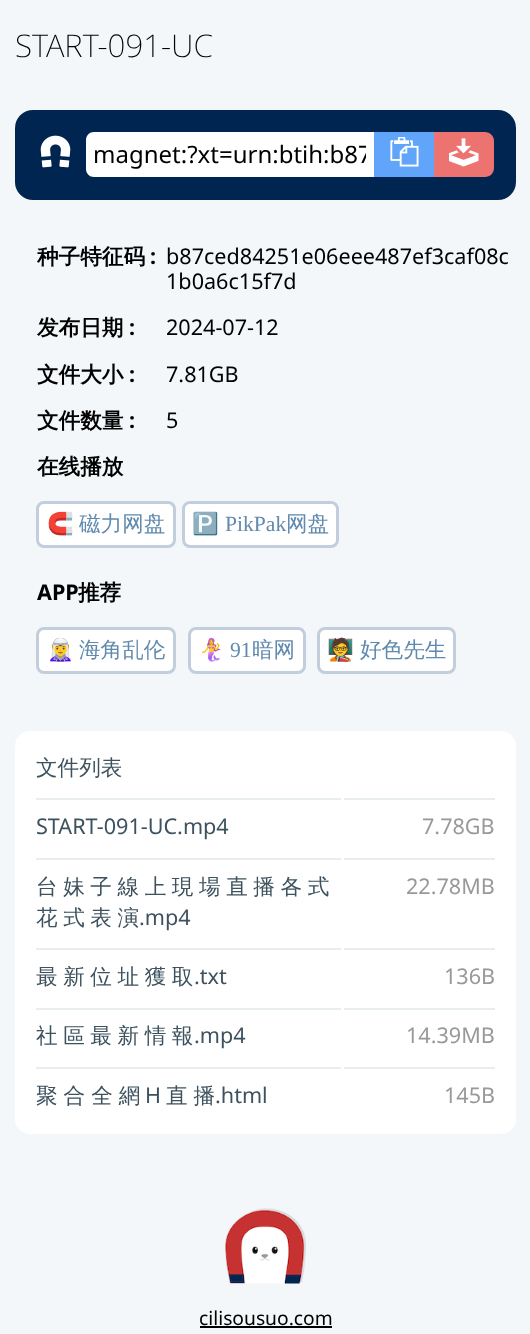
<svg xmlns="http://www.w3.org/2000/svg" width="530" height="1334">
<style>
.a{font:200 31.25px Noto Sans;fill:#000}
.b{font:24px Noto Sans;fill:#000}
.c{font:bold 21.6px WenQuanYi Zen Hei;fill:#000}
.d{font:bold 21.6px Noto Sans;fill:#000}
.e{font:21.6px Noto Sans;fill:#000}
.f{font:21.6px Noto Color Emoji;fill:#608aae}
.g{font:500 21.6px WenQuanYi Zen Hei;fill:#608aae}
.h{font:21.6px Liberation Serif;fill:#608aae}
.i{font:500 21.6px WenQuanYi Zen Hei;fill:#3d525e}
.j{font:21.6px Noto Sans;fill:#3d525e}
.k{font:21.6px Noto Sans;fill:#999}
.l{font:19.25px Noto Sans;fill:#000}
</style>
<defs>
<clipPath id="clip1"><path d="M93 138h273v33H93z"/></clipPath>
</defs>
<rect width="100%" height="100%" fill="#f3f7fa"/>
<rect fill="#002551" x="15" y="110" width="501" height="90" rx="18"/>
<image href="1.png" x="40" y="135" width="31" height="33"/>
<path fill="#fff" d="M94 132h280v45h-280c-4.5 0-8-3.5-8-8v-29c0-4.5 3.5-8 8-8z"/>
<path fill="#60a5fa" d="M374 132h60v45H374z"/>
<image href="2.png" x="390" y="137" width="29" height="30"/>
<path fill="#ec7370" d="M434 132h51c5 0 9 4 9 9v27c0 5-4 9-9 9h-51z"/>
<image href="3.png" x="449" y="138" width="30" height="29"/>
<rect fill="#fff" stroke="#c3cedc" stroke-width="3" x="37.5" y="502.5" width="137" height="44" rx="6.5"/>
<rect fill="#fff" stroke="#c3cedc" stroke-width="3" x="183.5" y="502.5" width="154" height="44" rx="6.5"/>
<rect fill="#fff" stroke="#c3cedc" stroke-width="3" x="37.5" y="628.5" width="137" height="44" rx="6.5"/>
<rect fill="#fff" stroke="#c3cedc" stroke-width="3" x="189.5" y="628.5" width="115" height="44" rx="6.5"/>
<rect fill="#fff" stroke="#c3cedc" stroke-width="3" x="318.5" y="628.5" width="136" height="44" rx="6.5"/>
<rect fill="#fff" x="15" y="731" width="501" height="403" rx="15"/>
<path fill="#e8edf0" d="M36 798h305v2H36z"/>
<path fill="#e8edf0" d="M344 798h151v2H344z"/>
<path fill="#e8edf0" d="M36 858h305v2H36z"/>
<path fill="#e8edf0" d="M344 858h151v2H344z"/>
<path fill="#e8edf0" d="M36 948h305v2H36z"/>
<path fill="#e8edf0" d="M344 948h151v2H344z"/>
<path fill="#e8edf0" d="M36 1008h305v2H36z"/>
<path fill="#e8edf0" d="M344 1008h151v2H344z"/>
<path fill="#e8edf0" d="M36 1067h305v2H36z"/>
<path fill="#e8edf0" d="M344 1067h151v2H344z"/>
<image href="4.png" x="225" y="1208" width="81" height="76"/>
<path fill="#000" d="M200 1326h132v2H200z"/>
<text class="a" x="15" y="57">START-091-UC</text>
<g clip-path="url(#clip1)">
<text class="b" x="93" y="163">magnet:?xt=urn:btih:b87</text>
</g>
<text class="c" x="37" y="264">种子特征码</text>
<text class="d" x="150" y="264">:</text>
<text class="e" x="166" y="264">b87ced84251e06eee487ef3caf08c</text>
<text class="e" x="166" y="289">1b0a6c15f7d</text>
<text class="c" x="37" y="335">发布日期</text>
<text class="d" x="129" y="335">:</text>
<text class="e" x="166" y="335">2024-07-12</text>
<text class="c" x="37" y="382">文件大小</text>
<text class="d" x="129" y="382">:</text>
<text class="e" x="166" y="382">7.81GB</text>
<text class="c" x="37" y="428">文件数量</text>
<text class="d" x="129" y="428">:</text>
<text class="e" x="166" y="428">5</text>
<text class="c" x="37" y="474">在线播放</text>
<text class="f" x="47" y="531">🧲</text>
<text class="g" x="79" y="531">磁力网盘</text>
<text class="f" x="192" y="531">🅿️</text>
<text class="h" x="225" y="531">PikPak</text>
<text class="g" x="286" y="531">网盘</text>
<text class="d" x="37" y="600">APP</text>
<text class="c" x="78" y="600">推荐</text>
<text class="f" x="47" y="657">🧝‍♀️</text>
<text class="g" x="79" y="657">海角乱伦</text>
<text class="f" x="198" y="657">🧜‍♀️</text>
<text class="h" x="230" y="657">91</text>
<text class="g" x="252" y="657">暗网</text>
<text class="f" x="327" y="657">🧑‍🏫️</text>
<text class="g" x="360" y="657">好色先生</text>
<text class="i" x="36" y="775">文件列表</text>
<text class="j" x="36" y="834">START-091-UC.mp4</text>
<text class="k" x="422" y="834">7.78GB</text>
<text class="i" x="36" y="894" word-spacing="-0.9">台 妹 子 線 上 現 場 直 播 各 式</text>
<text class="i" x="36" y="925" word-spacing="-0.9">花 式 表 演</text>
<text class="j" x="139" y="925">.mp4</text>
<text class="k" x="406" y="894">22.78MB</text>
<text class="i" x="36" y="984" word-spacing="-0.9">最 新 位 址 獲 取</text>
<text class="j" x="194" y="984">.txt</text>
<text class="k" x="444" y="984">136B</text>
<text class="i" x="36" y="1043" word-spacing="-0.9">社 區 最 新 情 報</text>
<text class="j" x="194" y="1043">.mp4</text>
<text class="k" x="406" y="1043">14.39MB</text>
<text class="i" x="36" y="1103" word-spacing="-0.5">聚 合 全 網</text>
<text class="j" x="145" y="1103">H</text>
<text class="i" x="166" y="1103" word-spacing="-0.5">直 播</text>
<text class="j" x="215" y="1103">.html</text>
<text class="k" x="444" y="1103">145B</text>
<text class="l" x="199" y="1325">cilisousuo.com</text>
</svg>
